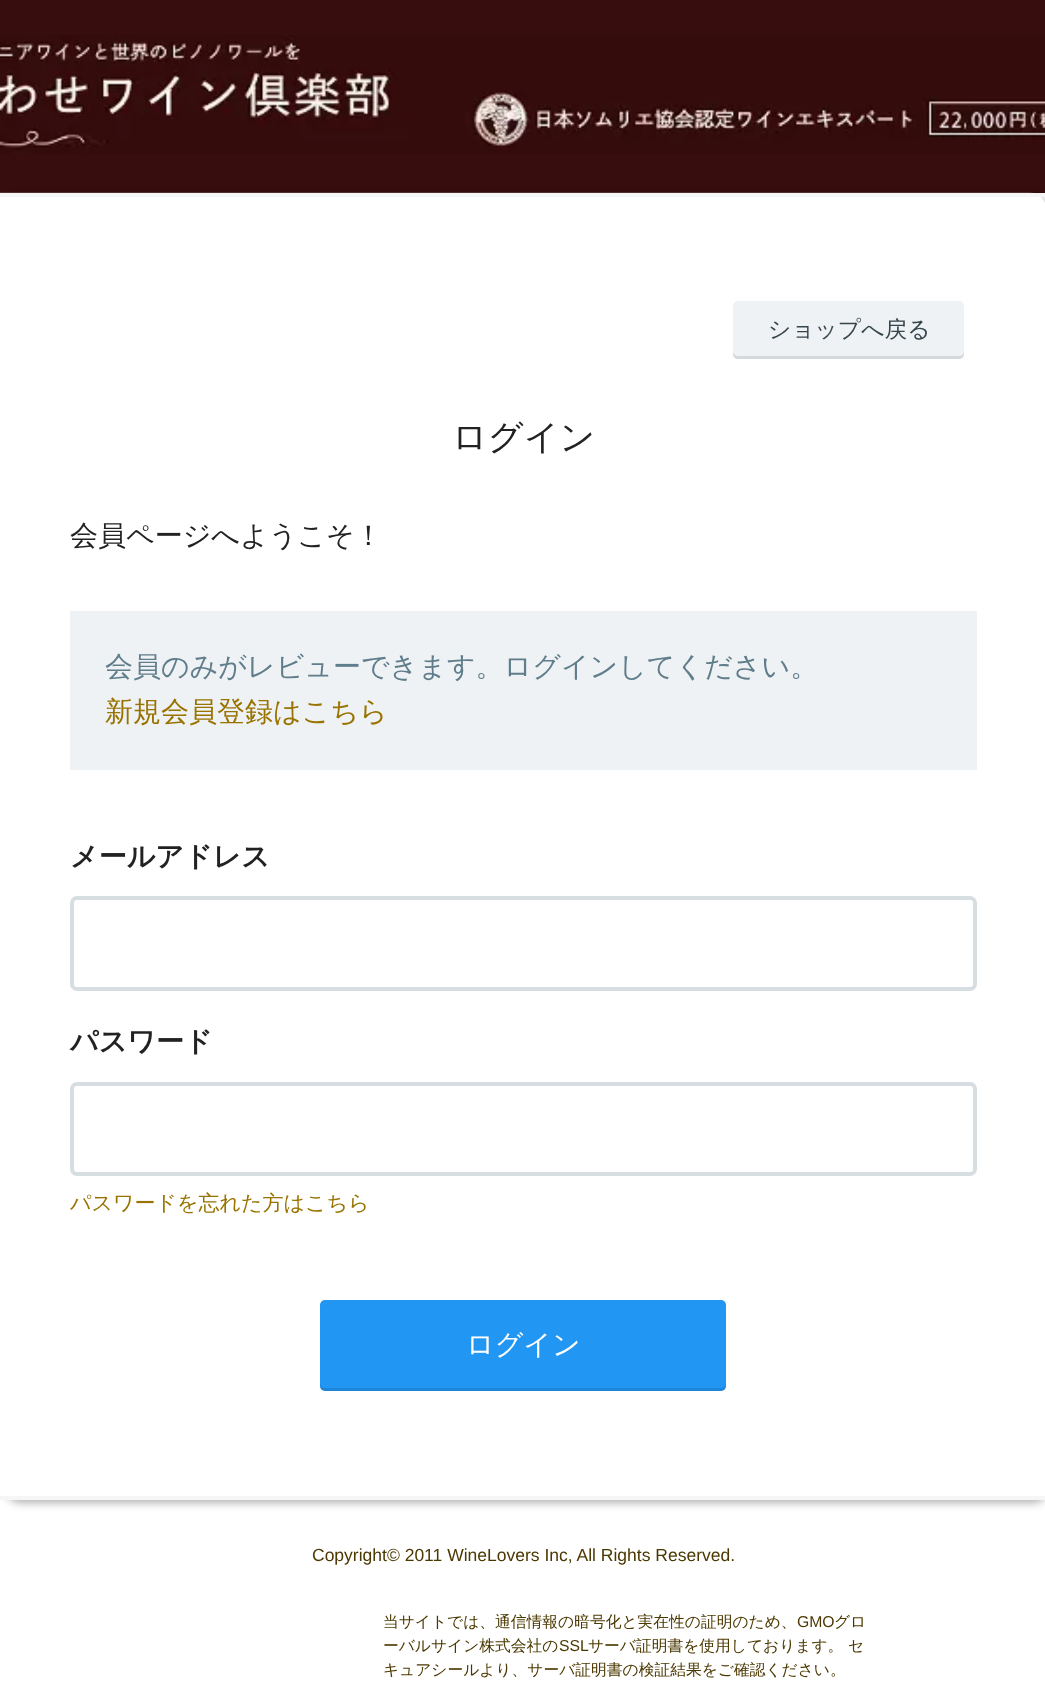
<svg xmlns="http://www.w3.org/2000/svg" width="1045" height="1683">
<style>
.a{font:500 22.75px WenQuanYi Zen Hei;fill:#35454c}
.b{font:500 35px WenQuanYi Zen Hei;fill:#222}
.c{font:500 28px WenQuanYi Zen Hei;fill:#222}
.d{font:500 28px WenQuanYi Zen Hei;fill:#607d8b}
.e{font:500 28px WenQuanYi Zen Hei;fill:#997300}
.f{font:bold 28px WenQuanYi Zen Hei;fill:#222}
.g{font:500 21px WenQuanYi Zen Hei;fill:#997300}
.h{font:500 28px WenQuanYi Zen Hei;fill:#fff}
.i{font:17.5px Liberation Sans;fill:#4b3801}
.j{font:500 15.75px WenQuanYi Zen Hei;fill:#4b3801}
.k{font:15.75px Liberation Sans;fill:#4b3801}
</style>
<rect width="100%" height="100%" fill="#fff"/>
<path fill="#370d0e" d="M0 0h1045v193H0z"/>
<image href="1.png" x="0" y="35" width="1045" height="119"/>
<rect fill="#0000004d" filter="blur(4.5px)" x="4" y="196" width="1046" height="1307" rx="18"/>
<path fill="#fff" d="M0 193h1029c10 0 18 8 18 18v1289h-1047z"/>
<image href="2.png" x="0" y="192" width="1033" height="1"/>
<path fill="#f6f6f6" d="M0 193h1045v4H0z"/>
<path fill="#f6f6f6" d="M0 1496h1045v4H0z"/>
<rect fill="#eff2f4" x="733" y="301" width="231" height="58" rx="5"/>
<path fill="#0000001a" d="M733 351v3c0 3 2 5 5 5h221c3 0 5-2 5-5v-3c0 3-2 5-5 5h-221c-2 0-5-2-5-5z"/>
<path fill="#eff2f4" d="M70 611h907v159H70z"/>
<rect fill="none" stroke="#d7dee2" stroke-width="4" x="72" y="898" width="903" height="91" rx="5"/>
<rect fill="none" stroke="#d7dee2" stroke-width="4" x="72" y="1084" width="903" height="90" rx="5"/>
<rect fill="#2196f3" x="320" y="1300" width="406" height="91" rx="5"/>
<path fill="#0000001a" d="M320 1383v3c0 3 2 5 5 5h396c3 0 5-2 5-5v-3c0 3-2 5-5 5h-395c-3 0-6-2-6-5z"/>
<text class="a" x="768" y="337">ショップへ戻る</text>
<text class="b" x="452" y="449">ログイン</text>
<text class="c" x="70" y="545">会員ページへようこそ！</text>
<text class="d" x="105" y="676">会員のみがレビューできます。ログインしてください。</text>
<text class="e" x="105" y="721">新規会員登録はこちら</text>
<text class="f" x="70" y="866">メールアドレス</text>
<text class="f" x="70" y="1051">パスワード</text>
<text class="g" x="70" y="1210">パスワードを忘れた方はこちら</text>
<text class="h" x="466" y="1354">ログイン</text>
<text class="i" x="312" y="1561">Copyright© 2011 WineLovers Inc, All Rights Reserved.</text>
<text class="j" x="383" y="1627">当サイトでは、通信情報の暗号化と実在性の証明のため、</text>
<text class="k" x="797" y="1627">GMO</text>
<text class="j" x="834" y="1627">グロ</text>
<text class="j" x="383" y="1651">ーバルサイン株式会社の</text>
<text class="k" x="559" y="1651">SSL</text>
<text class="j" x="588" y="1651">サーバ証明書を使用しております。 セ</text>
<text class="j" x="383" y="1675">キュアシールより、サーバ証明書の検証結果をご確認ください。</text>
</svg>
